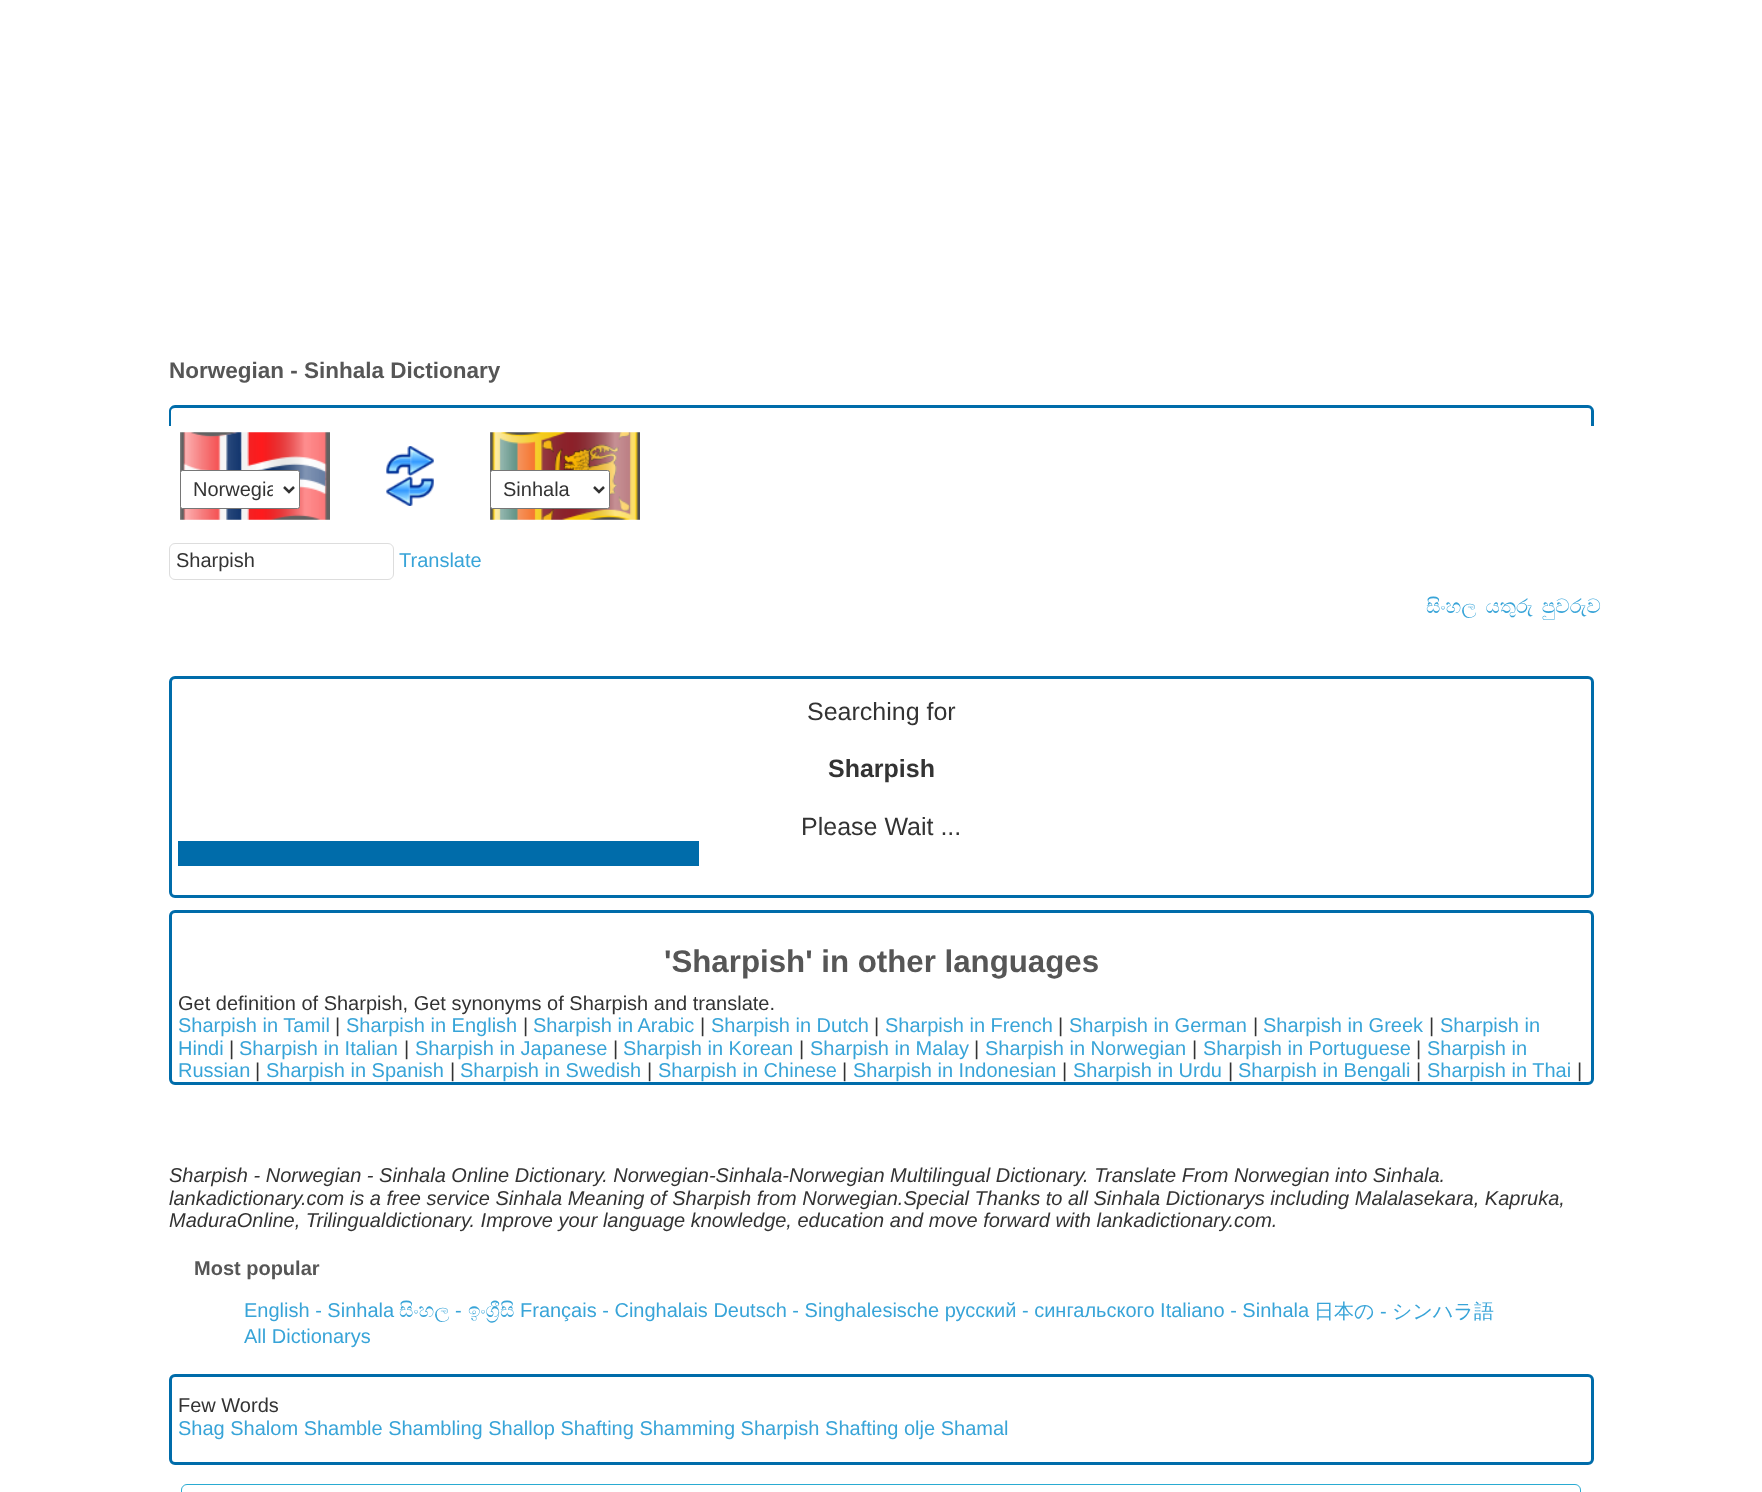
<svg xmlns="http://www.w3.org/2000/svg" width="1762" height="1492">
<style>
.a{font:bold 22.5px Liberation Sans;fill:#565656}
.b{font:20px Liberation Sans;fill:#333}
.c{font:20px Liberation Sans;fill:#38a4d8}
.d{font:20px FreeSerif;fill:#38a4d8}
.e{font:25px Liberation Sans;fill:#333}
.f{font:bold 25px Liberation Sans;fill:#333}
.g{font:bold 31.25px Liberation Sans;fill:#565656}
.h{font:italic 20px Liberation Sans;fill:#333}
.i{font:bold 20px Liberation Sans;fill:#565656}
.j{font:500 20px WenQuanYi Zen Hei;fill:#38a4d8}
</style>
<defs>
<clipPath id="clip1"><path d="M193 478h80v23H193z"/></clipPath>
</defs>
<rect width="100%" height="100%" fill="#fff"/>
<path fill="#006caa" fill-rule="evenodd" d="M175 405h1413c3 0 6 3 6 6v15h-1425v-15c0-3 3-6 6-6zm0 3h1413c2 0 3 1 3 3v15h-1420v-15c0-2 2-3 4-3z"/>
<image href="1.png" x="180" y="432" width="150" height="88"/>
<rect fill="#fff" stroke="#767676" x="180.5" y="470.5" width="119" height="38" rx="2"/>
<path fill="none" stroke="#333" stroke-width="2.5" d="M284 487l5 5l5-5"/>
<image href="2.png" x="386" y="446" width="48" height="60"/>
<image href="3.png" x="490" y="432" width="150" height="88"/>
<rect fill="#fff" stroke="#767676" x="490.5" y="470.5" width="119" height="38" rx="2"/>
<path fill="none" stroke="#333" stroke-width="2.5" d="M594 487l5 5l5-5"/>
<rect fill="none" stroke="#ddd" x="169.5" y="543.5" width="224" height="36" rx="5.5"/>
<rect fill="none" stroke="#006caa" stroke-width="3" x="170.5" y="677.5" width="1422" height="219" rx="4.5"/>
<path fill="#006caa" d="M178 841h521v25H178z"/>
<rect fill="none" stroke="#006caa" stroke-width="3" x="170.5" y="911.5" width="1422" height="172" rx="4.5"/>
<rect fill="none" stroke="#006caa" stroke-width="3" x="170.5" y="1375.5" width="1422" height="88" rx="4.5"/>
<rect fill="none" stroke="#2aabd2" x="181.5" y="1484.5" width="1399" height="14" rx="5.5"/>
<text class="a" x="169" y="378">Norwegian - Sinhala Dictionary</text>
<g clip-path="url(#clip1)">
<text class="b" x="193" y="496">Norwegia</text>
</g>
<text class="b" x="503" y="496">Sinhala</text>
<text class="b" x="176" y="567">Sharpish</text>
<text class="c" x="399" y="567">Translate</text>
<text class="d" x="1426" y="613" word-spacing="-1">සිංහල යතුරු පුවරුව</text>
<text class="e" x="807" y="720">Searching for</text>
<text class="f" x="828" y="777">Sharpish</text>
<text class="e" x="801" y="835">Please Wait ...</text>
<text class="g" x="664" y="972">'Sharpish' in other languages</text>
<text class="b" x="178" y="1010">Get definition of Sharpish, Get synonyms of Sharpish and translate.</text>
<text class="c" x="178" y="1032">Sharpish in Tamil</text>
<text class="b" x="335" y="1032">|</text>
<text class="c" x="346" y="1032">Sharpish in English</text>
<text class="b" x="523" y="1032">|</text>
<text class="c" x="533" y="1032">Sharpish in Arabic</text>
<text class="b" x="700" y="1032">|</text>
<text class="c" x="711" y="1032">Sharpish in Dutch</text>
<text class="b" x="874" y="1032">|</text>
<text class="c" x="885" y="1032">Sharpish in French</text>
<text class="b" x="1058" y="1032">|</text>
<text class="c" x="1069" y="1032">Sharpish in German</text>
<text class="b" x="1253" y="1032">|</text>
<text class="c" x="1263" y="1032">Sharpish in Greek</text>
<text class="b" x="1429" y="1032">|</text>
<text class="c" x="1440" y="1032">Sharpish in</text>
<text class="c" x="178" y="1055">Hindi</text>
<text class="b" x="229" y="1055">|</text>
<text class="c" x="239" y="1055">Sharpish in Italian</text>
<text class="b" x="404" y="1055">|</text>
<text class="c" x="415" y="1055">Sharpish in Japanese</text>
<text class="b" x="613" y="1055">|</text>
<text class="c" x="623" y="1055">Sharpish in Korean</text>
<text class="b" x="799" y="1055">|</text>
<text class="c" x="810" y="1055">Sharpish in Malay</text>
<text class="b" x="974" y="1055">|</text>
<text class="c" x="985" y="1055">Sharpish in Norwegian</text>
<text class="b" x="1192" y="1055">|</text>
<text class="c" x="1203" y="1055">Sharpish in Portuguese</text>
<text class="b" x="1416" y="1055">|</text>
<text class="c" x="1427" y="1055">Sharpish in</text>
<text class="c" x="178" y="1077">Russian</text>
<text class="b" x="255" y="1077">|</text>
<text class="c" x="266" y="1077">Sharpish in Spanish</text>
<text class="b" x="450" y="1077">|</text>
<text class="c" x="460" y="1077">Sharpish in Swedish</text>
<text class="b" x="647" y="1077">|</text>
<text class="c" x="658" y="1077">Sharpish in Chinese</text>
<text class="b" x="842" y="1077">|</text>
<text class="c" x="853" y="1077">Sharpish in Indonesian</text>
<text class="b" x="1062" y="1077">|</text>
<text class="c" x="1073" y="1077">Sharpish in Urdu</text>
<text class="b" x="1228" y="1077">|</text>
<text class="c" x="1238" y="1077">Sharpish in Bengali</text>
<text class="b" x="1416" y="1077">|</text>
<text class="c" x="1427" y="1077">Sharpish in Thai</text>
<text class="b" x="1577" y="1077">|</text>
<text class="h" x="169" y="1182">Sharpish - Norwegian - Sinhala Online Dictionary. Norwegian-Sinhala-Norwegian Multilingual Dictionary. Translate From Norwegian into Sinhala.</text>
<text class="h" x="169" y="1205">lankadictionary.com is a free service Sinhala Meaning of Sharpish from Norwegian.Special Thanks to all Sinhala Dictionarys including Malalasekara, Kapruka,</text>
<text class="h" x="169" y="1227">MaduraOnline, Trilingualdictionary. Improve your language knowledge, education and move forward with lankadictionary.com.</text>
<text class="i" x="194" y="1275">Most popular</text>
<text class="c" x="244" y="1317">English - Sinhala</text>
<text class="d" x="399" y="1317">සිංහල</text>
<text class="c" x="455" y="1317">-</text>
<text class="d" x="468" y="1317">ඉංග්‍රීසි</text>
<text class="c" x="520" y="1317">Français - Cinghalais Deutsch - Singhalesische русский - сингальского Italiano - Sinhala</text>
<text class="j" x="1314" y="1318">日本の</text>
<text class="c" x="1380" y="1318">-</text>
<text class="j" x="1392" y="1318">シンハラ語</text>
<text class="c" x="244" y="1343">All Dictionarys</text>
<text class="b" x="178" y="1412">Few Words</text>
<text class="c" x="178" y="1435">Shag Shalom Shamble Shambling Shallop Shafting Shamming Sharpish Shafting olje Shamal</text>
</svg>
